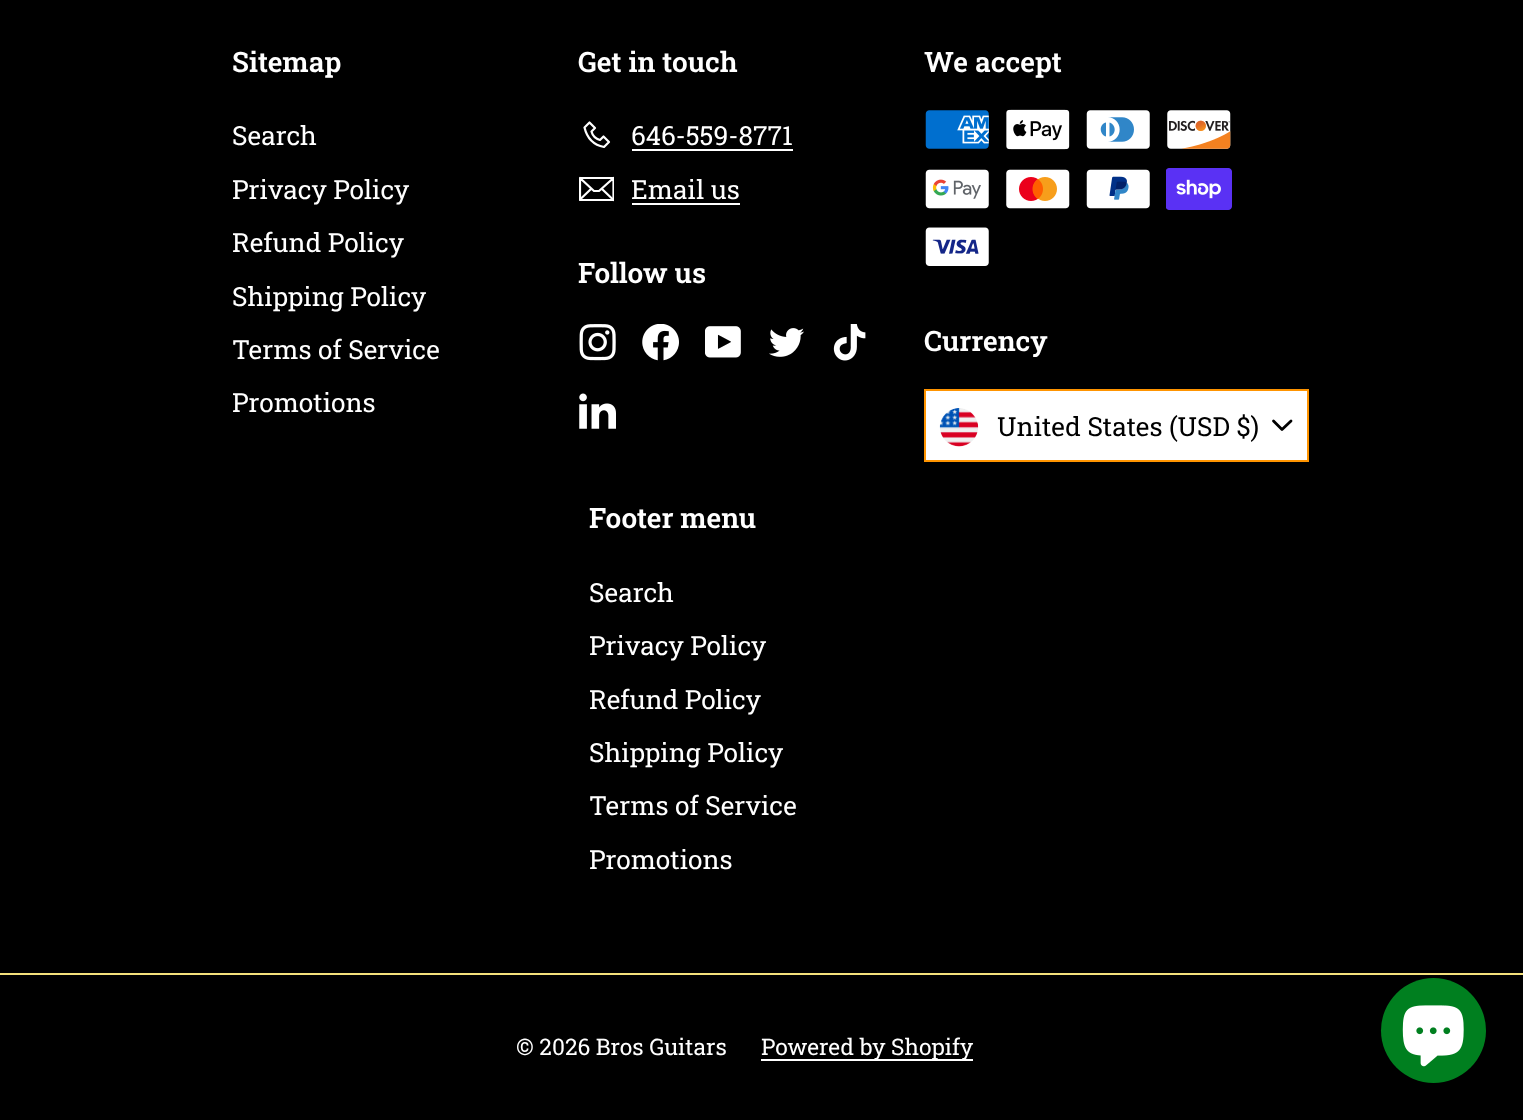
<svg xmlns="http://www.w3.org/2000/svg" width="1523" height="1120">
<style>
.a{font:600 28px Roboto Slab;fill:#fff}
.b{font:26.25px Roboto Slab;fill:#fff}
.c{font:26.25px Roboto Slab;fill:#000}
.d{font:22.75px Roboto Slab;fill:#fff}
</style>
<defs>
<clipPath id="clip1"><path d="M579 172h35v35H579z"/></clipPath>
</defs>
<rect width="100%" height="100%" fill="#000"/>
<path fill="none" stroke="#fff" stroke-width="2.2" stroke-linecap="round" stroke-linejoin="round" d="M589.5 122.5l5.5 5.5l-3.5 3.5c1 4 3.5 7 8.5 8.5l3.5-3.5l5.5 5.5l-5 5c-10.5-2-17-9-19.5-19.5z"/>
<path fill="#fff" d="M632 149h161v2H632z"/>
<g clip-path="url(#clip1)">
<path fill="none" stroke="#fff" stroke-width="2.2" stroke-linecap="round" stroke-linejoin="round" d="M613.5 200h-33.5v-22h33.5zm-33.5-22l14 13h5l14.5-13m-22.5 11l-11 10.5m33.5 .5l-11.5-11"/>
</g>
<path fill="#fff" d="M632 203h108v2H632z"/>
<image href="1.png" x="579" y="324" width="37" height="37"/>
<image href="2.png" x="642" y="324" width="37" height="37"/>
<image href="3.png" x="705" y="326" width="36" height="32"/>
<image href="4.png" x="769" y="328" width="35" height="29"/>
<image href="5.png" x="833" y="324" width="33" height="37"/>
<image href="6.png" x="579" y="393" width="37" height="36"/>
<image href="7.png" x="925" y="110" width="64" height="39"/>
<image href="8.png" x="1006" y="109" width="64" height="41"/>
<image href="9.png" x="1086" y="110" width="64" height="39"/>
<image href="10.png" x="1167" y="110" width="64" height="39"/>
<image href="11.png" x="925" y="169" width="64" height="40"/>
<image href="12.png" x="1006" y="169" width="64" height="40"/>
<image href="13.png" x="1086" y="169" width="64" height="40"/>
<image href="14.png" x="1166" y="168" width="66" height="42"/>
<image href="15.png" x="925" y="227" width="64" height="39"/>
<path fill="#fff" stroke="#ff9400" stroke-width="2" d="M925 390h383v71H925z"/>
<image href="16.png" x="939" y="408" width="40" height="39"/>
<path fill="none" stroke="#000" stroke-width="2.8" stroke-linecap="round" stroke-linejoin="round" d="M1273.5 421l8.5 8.5l9-8.5"/>
<path fill="#f3e07b" d="M0 973h1523v2H0z"/>
<path fill="#fff" d="M761 1059h212v2H761z"/>
<circle fill="#007f1f" cx="1433.5" cy="1030.5" r="52.5"/>
<image href="17.png" x="1402" y="1005" width="62" height="62"/>
<text class="a" x="232" y="72">Sitemap</text>
<text class="b" x="232" y="145">Search</text>
<text class="b" x="232" y="199">Privacy Policy</text>
<text class="b" x="232" y="252">Refund Policy</text>
<text class="b" x="232" y="306">Shipping Policy</text>
<text class="b" x="232" y="359">Terms of Service</text>
<text class="b" x="232" y="412">Promotions</text>
<text class="a" x="578" y="72">Get in touch</text>
<text class="b" x="631" y="145">646-559-8771</text>
<text class="b" x="631" y="199">Email us</text>
<text class="a" x="578" y="283">Follow us</text>
<text class="a" x="924" y="72">We accept</text>
<text class="a" x="924" y="351">Currency</text>
<text class="c" x="997" y="436">United States (USD $)</text>
<text class="a" x="589" y="528">Footer menu</text>
<text class="b" x="589" y="602">Search</text>
<text class="b" x="589" y="655">Privacy Policy</text>
<text class="b" x="589" y="709">Refund Policy</text>
<text class="b" x="589" y="762">Shipping Policy</text>
<text class="b" x="589" y="815">Terms of Service</text>
<text class="b" x="589" y="869">Promotions</text>
<text class="d" x="516" y="1055">© 2026 Bros Guitars</text>
<text class="d" x="761" y="1055">Powered by Shopify</text>
</svg>
